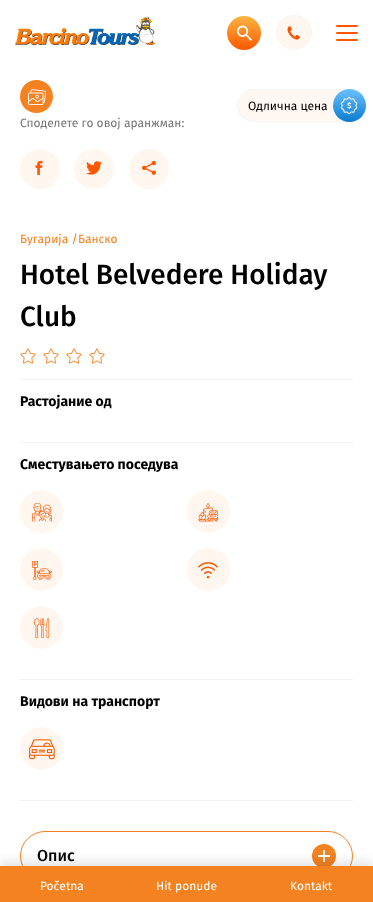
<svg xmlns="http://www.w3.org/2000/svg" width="373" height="902">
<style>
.a{font:12px Fira Sans;fill:#000}
.b{font:12px Fira Sans;fill:#767676}
.c{font:12px Fira Sans;fill:#f58220}
.d{font:500 28px Fira Sans;fill:#000}
.e{font:bold 14px Fira Sans;fill:#000}
.f{font:500 16px Fira Sans;fill:#000}
.g{font:12px Fira Sans;fill:#fff}
</style>
<defs>
<linearGradient id="g1" gradientUnits="userSpaceOnUse" x1="244" y1="16" x2="244" y2="50"><stop offset="0" stop-color="#fbb642"/><stop offset="1" stop-color="#fc5700"/></linearGradient>
<linearGradient id="g2" gradientUnits="userSpaceOnUse" x1="350" y1="122" x2="350" y2="89"><stop offset="0" stop-color="#0a7bd0"/><stop offset="1" stop-color="#6cc1ff"/></linearGradient>
</defs>
<rect width="100%" height="100%" fill="#fff"/>
<image href="1.png" x="15" y="17" width="140" height="28"/>
<circle fill="url(#g1)" cx="244" cy="33" r="17"/>
<image href="2.png" x="237" y="25" width="15" height="16"/>
<rect fill="none" stroke="#f5f5f5" stroke-width="2" x="277" y="16" width="34" height="33" rx="16.5"/>
<circle fill="#fff7ef" cx="294" cy="33" r="17"/>
<image href="3.png" x="287" y="26" width="13" height="14"/>
<rect fill="#fc5700" x="336" y="25" width="22" height="2" rx="1"/>
<rect fill="#fc5700" x="336" y="32" width="22" height="2" rx="1"/>
<rect fill="#fc5700" x="336" y="39" width="22" height="2" rx="1"/>
<circle fill="#f58220" cx="36.5" cy="96.5" r="16.5"/>
<image href="4.png" x="28" y="89" width="18" height="16"/>
<rect fill="#fff8f2" stroke="#f5f5f5" x="237.5" y="89.5" width="127" height="32" rx="16"/>
<circle fill="url(#g2)" cx="349.5" cy="105.5" r="16.5"/>
<image href="5.png" x="340" y="97" width="18" height="18"/>
<circle fill="#fff7ef" cx="40" cy="169" r="20"/>
<image href="6.png" x="35" y="160" width="8" height="15"/>
<circle fill="#fff7ef" cx="94" cy="169" r="20"/>
<image href="7.png" x="86" y="161" width="16" height="14"/>
<circle fill="#fff7ef" cx="149" cy="169" r="20"/>
<image href="8.png" x="142" y="160" width="14" height="15"/>
<image href="9.png" x="20" y="348" width="16" height="16"/>
<image href="9.png" x="43" y="348" width="16" height="16"/>
<image href="9.png" x="66" y="348" width="16" height="16"/>
<image href="9.png" x="89" y="348" width="16" height="16"/>
<path fill="#f3f3f3" d="M20 379h333v1H20z"/>
<path fill="#f3f3f3" d="M20 442h333v1H20z"/>
<path fill="#f3f3f3" d="M20 679h333v1H20z"/>
<circle fill="#fff7ef" cx="41.5" cy="511.5" r="21.5"/>
<image href="10.png" x="32" y="503" width="20" height="19"/>
<circle fill="#fff7ef" cx="208.5" cy="511.5" r="21.5"/>
<image href="11.png" x="198" y="503" width="21" height="19"/>
<circle fill="#fff7ef" cx="41.5" cy="569.5" r="21.5"/>
<image href="12.png" x="32" y="561" width="20" height="19"/>
<circle fill="#fff7ef" cx="208.5" cy="569.5" r="21.5"/>
<image href="13.png" x="198" y="562" width="20" height="17"/>
<circle fill="#fff7ef" cx="41.5" cy="627.5" r="21.5"/>
<image href="14.png" x="34" y="618" width="16" height="21"/>
<path fill="#f3f3f3" d="M20 800h333v1H20z"/>
<circle fill="#fff7ef" cx="41.5" cy="748.5" r="21.5"/>
<image href="15.png" x="29" y="739" width="26" height="21"/>
<rect fill="none" stroke="#f58220" x="20.5" y="831.5" width="332" height="49" rx="24.5"/>
<circle fill="#f58220" cx="324" cy="856" r="12"/>
<path fill="#fff" d="M318 855h12v2H318z"/>
<path fill="#fff" d="M323 850h2v12H323z"/>
<path fill="#0000001a" filter="blur(5px)" d="M0 861h373v36H0z"/>
<path fill="#f58220" d="M0 866h373v36H0z"/>
<text class="a" x="248" y="110">Одлична цена</text>
<text class="b" x="20" y="127">Споделете го овој аранжман:</text>
<text class="c" x="20" y="243">Бугарија /</text>
<text class="c" x="78" y="243">Банско</text>
<text class="d" x="20" y="284">Hotel Belvedere Holiday</text>
<text class="d" x="20" y="326">Club</text>
<text class="e" x="20" y="406">Растојание од</text>
<text class="e" x="20" y="469">Сместувањето поседува</text>
<text class="e" x="20" y="706">Видови на транспорт</text>
<text class="f" x="37" y="861">Опис</text>
<text class="g" x="40" y="890">Početna</text>
<text class="g" x="156" y="890">Hit ponude</text>
<text class="g" x="290" y="890">Kontakt</text>
</svg>
